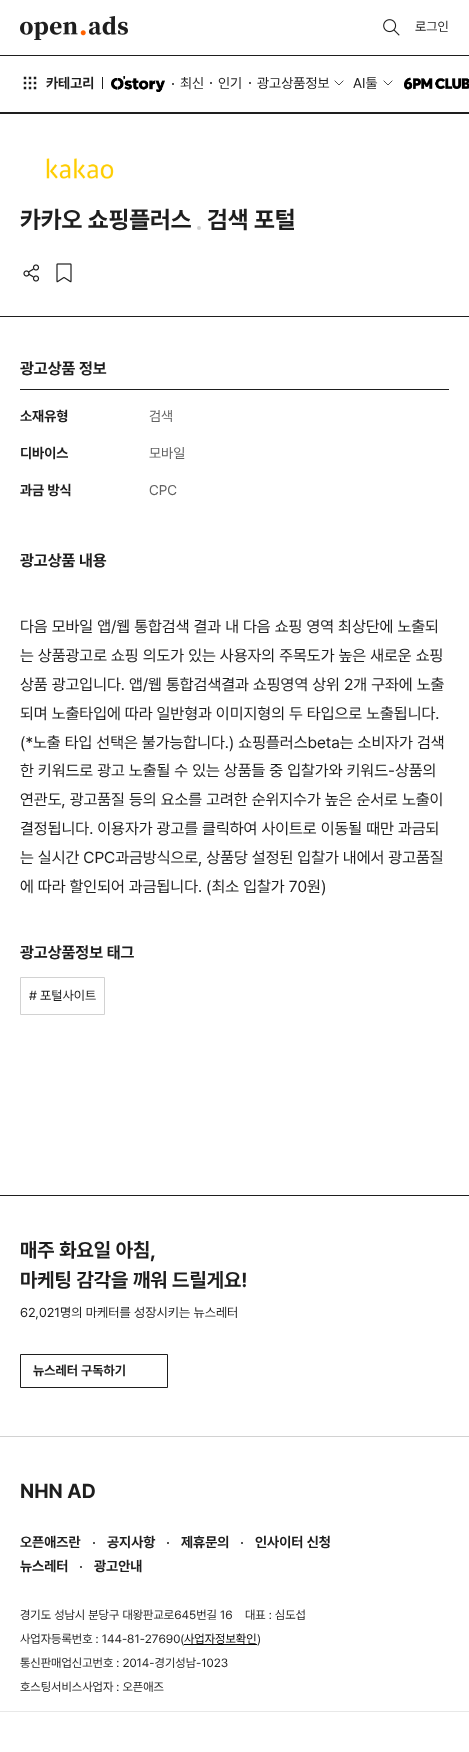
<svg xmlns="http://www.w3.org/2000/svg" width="469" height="1752">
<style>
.a{font:13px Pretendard;fill:#1e1e1e}
.b{font:bold 14px Pretendard;fill:#1e1e1e}
.c{font:14px Pretendard;fill:#1e1e1e}
.d{font:bold 24px Pretendard;fill:#1e1e1e}
.e{font:bold 16px Pretendard;fill:#1e1e1e}
.f{font:14px Pretendard;fill:#616161}
.g{font:16px Pretendard;fill:#1e1e1e}
.h{font:bold 20px Pretendard;fill:#1e1e1e}
.i{font:bold 13px Pretendard;fill:#1e1e1e}
.j{font:12px Pretendard;fill:#1e1e1e}
.k{font:12px Pretendard;fill:#000}
</style>
<rect width="100%" height="100%" fill="#fff"/>
<image href="1.png" x="20" y="16" width="108" height="24"/>
<path fill="#1e1e1e" d="M0 112h469v2H0z"/>
<path fill="#1e1e1e" d="M0 55h469v1H0z"/>
<image href="2.png" x="383" y="19" width="17" height="17"/>
<image href="3.png" x="23" y="76" width="14" height="14"/>
<path fill="#1e1e1e" d="M102 77h1v12H102z"/>
<image href="4.png" x="111" y="76" width="54" height="16"/>
<circle fill="#1e1e1e" cx="173" cy="84" r="1"/>
<circle fill="#1e1e1e" cx="211" cy="83" r="1"/>
<circle fill="#1e1e1e" cx="250" cy="83" r="1"/>
<path fill="none" stroke="#1e1e1e" stroke-width="0.8" stroke-linecap="square" d="M335 81l4 4l4-4"/>
<path fill="none" stroke="#1e1e1e" stroke-width="0.8" stroke-linecap="square" d="M384 81l4 4l4-4"/>
<image href="5.png" x="404" y="77" width="65" height="13"/>
<image href="6.png" x="46" y="158" width="68" height="21"/>
<circle fill="#d2d2d2" cx="199" cy="228" r="2"/>
<image href="7.png" x="23" y="264" width="17" height="18"/>
<image href="8.png" x="56" y="263" width="16" height="20"/>
<path fill="#1e1e1e" d="M0 316h469v1H0z"/>
<path fill="#1e1e1e" d="M20 389h429v1H20z"/>
<path fill="#e8e8e8" d="M0 1711h469v1H0z"/>
<path fill="none" stroke="#d2d2d2" d="M20.5 977.5h84v37H20.5z"/>
<path fill="#1e1e1e" d="M0 1195h469v1H0z"/>
<path fill="none" stroke="#1e1e1e" d="M20.5 1354.5h147v33H20.5z"/>
<path fill="#d2d2d2" d="M0 1436h469v1H0z"/>
<circle fill="#1e1e1e" cx="94" cy="1543" r="1"/>
<circle fill="#1e1e1e" cx="168" cy="1543" r="1"/>
<circle fill="#1e1e1e" cx="242" cy="1543" r="1"/>
<circle fill="#1e1e1e" cx="81" cy="1567" r="1"/>
<path fill="#000" d="M184 1644h73v1H184z"/>
<text class="a" x="415" y="31">로그인</text>
<text class="b" x="46" y="88">카테고리</text>
<text class="c" x="180" y="88">최신</text>
<text class="c" x="218" y="88">인기</text>
<text class="c" x="257" y="88">광고상품정보</text>
<text class="c" x="353" y="88">AI툴</text>
<text class="d" x="20" y="228">카카오 쇼핑플러스</text>
<text class="d" x="207" y="228">검색 포털</text>
<text class="e" x="20" y="374">광고상품 정보</text>
<text class="b" x="20" y="421">소재유형</text>
<text class="f" x="149" y="421">검색</text>
<text class="b" x="20" y="458">디바이스</text>
<text class="f" x="149" y="458">모바일</text>
<text class="b" x="20" y="495">과금 방식</text>
<text class="f" x="149" y="495">CPC</text>
<text class="e" x="20" y="566">광고상품 내용</text>
<text class="g" x="20" y="632">다음 모바일 앱/웹 통합검색 결과 내 다음 쇼핑 영역 최상단에 노출되</text>
<text class="g" x="20" y="661">는 상품광고로 쇼핑 의도가 있는 사용자의 주목도가 높은 새로운 쇼핑</text>
<text class="g" x="20" y="690">상품 광고입니다. 앱/웹 통합검색결과 쇼핑영역 상위 2개 구좌에 노출</text>
<text class="g" x="20" y="719">되며 노출타입에 따라 일반형과 이미지형의 두 타입으로 노출됩니다.</text>
<text class="g" x="20" y="748">(*노출 타입 선택은 불가능합니다.) 쇼핑플러스beta는 소비자가 검색</text>
<text class="g" x="20" y="776">한 키워드로 광고 노출될 수 있는 상품들 중 입찰가와 키워드-상품의</text>
<text class="g" x="20" y="805">연관도, 광고품질 등의 요소를 고려한 순위지수가 높은 순서로 노출이</text>
<text class="g" x="20" y="834">결정됩니다. 이용자가 광고를 클릭하여 사이트로 이동될 때만 과금되</text>
<text class="g" x="20" y="863">는 실시간 CPC과금방식으로, 상품당 설정된 입찰가 내에서 광고품질</text>
<text class="g" x="20" y="892">에 따라 할인되어 과금됩니다. (최소 입찰가 70원)</text>
<text class="e" x="20" y="958">광고상품정보 태그</text>
<text class="a" x="29" y="1000"># 포털사이트</text>
<text class="h" x="20" y="1257">매주 화요일 아침,</text>
<text class="h" x="20" y="1287">마케팅 감각을 깨워 드릴게요!</text>
<text class="a" x="20" y="1317">62,021명의 마케터를 성장시키는 뉴스레터</text>
<text class="i" x="33" y="1375">뉴스레터 구독하기</text>
<text class="h" x="20" y="1498">NHN AD</text>
<text class="b" x="20" y="1547">오픈애즈란</text>
<text class="b" x="107" y="1547">공지사항</text>
<text class="b" x="181" y="1547">제휴문의</text>
<text class="b" x="255" y="1547">인사이터 신청</text>
<text class="b" x="20" y="1571">뉴스레터</text>
<text class="b" x="94" y="1571">광고안내</text>
<text class="j" x="20" y="1619">경기도 성남시 분당구 대왕판교로645번길 16</text>
<text class="j" x="245" y="1619">대표 : 심도섭</text>
<text class="j" x="20" y="1643">사업자등록번호 : 144-81-27690(</text>
<text class="k" x="184" y="1643">사업자정보확인</text>
<text class="j" x="257" y="1643">)</text>
<text class="j" x="20" y="1667">통신판매업신고번호 : 2014-경기성남-1023</text>
<text class="j" x="20" y="1691">호스팅서비스사업자 : 오픈애즈</text>
</svg>
